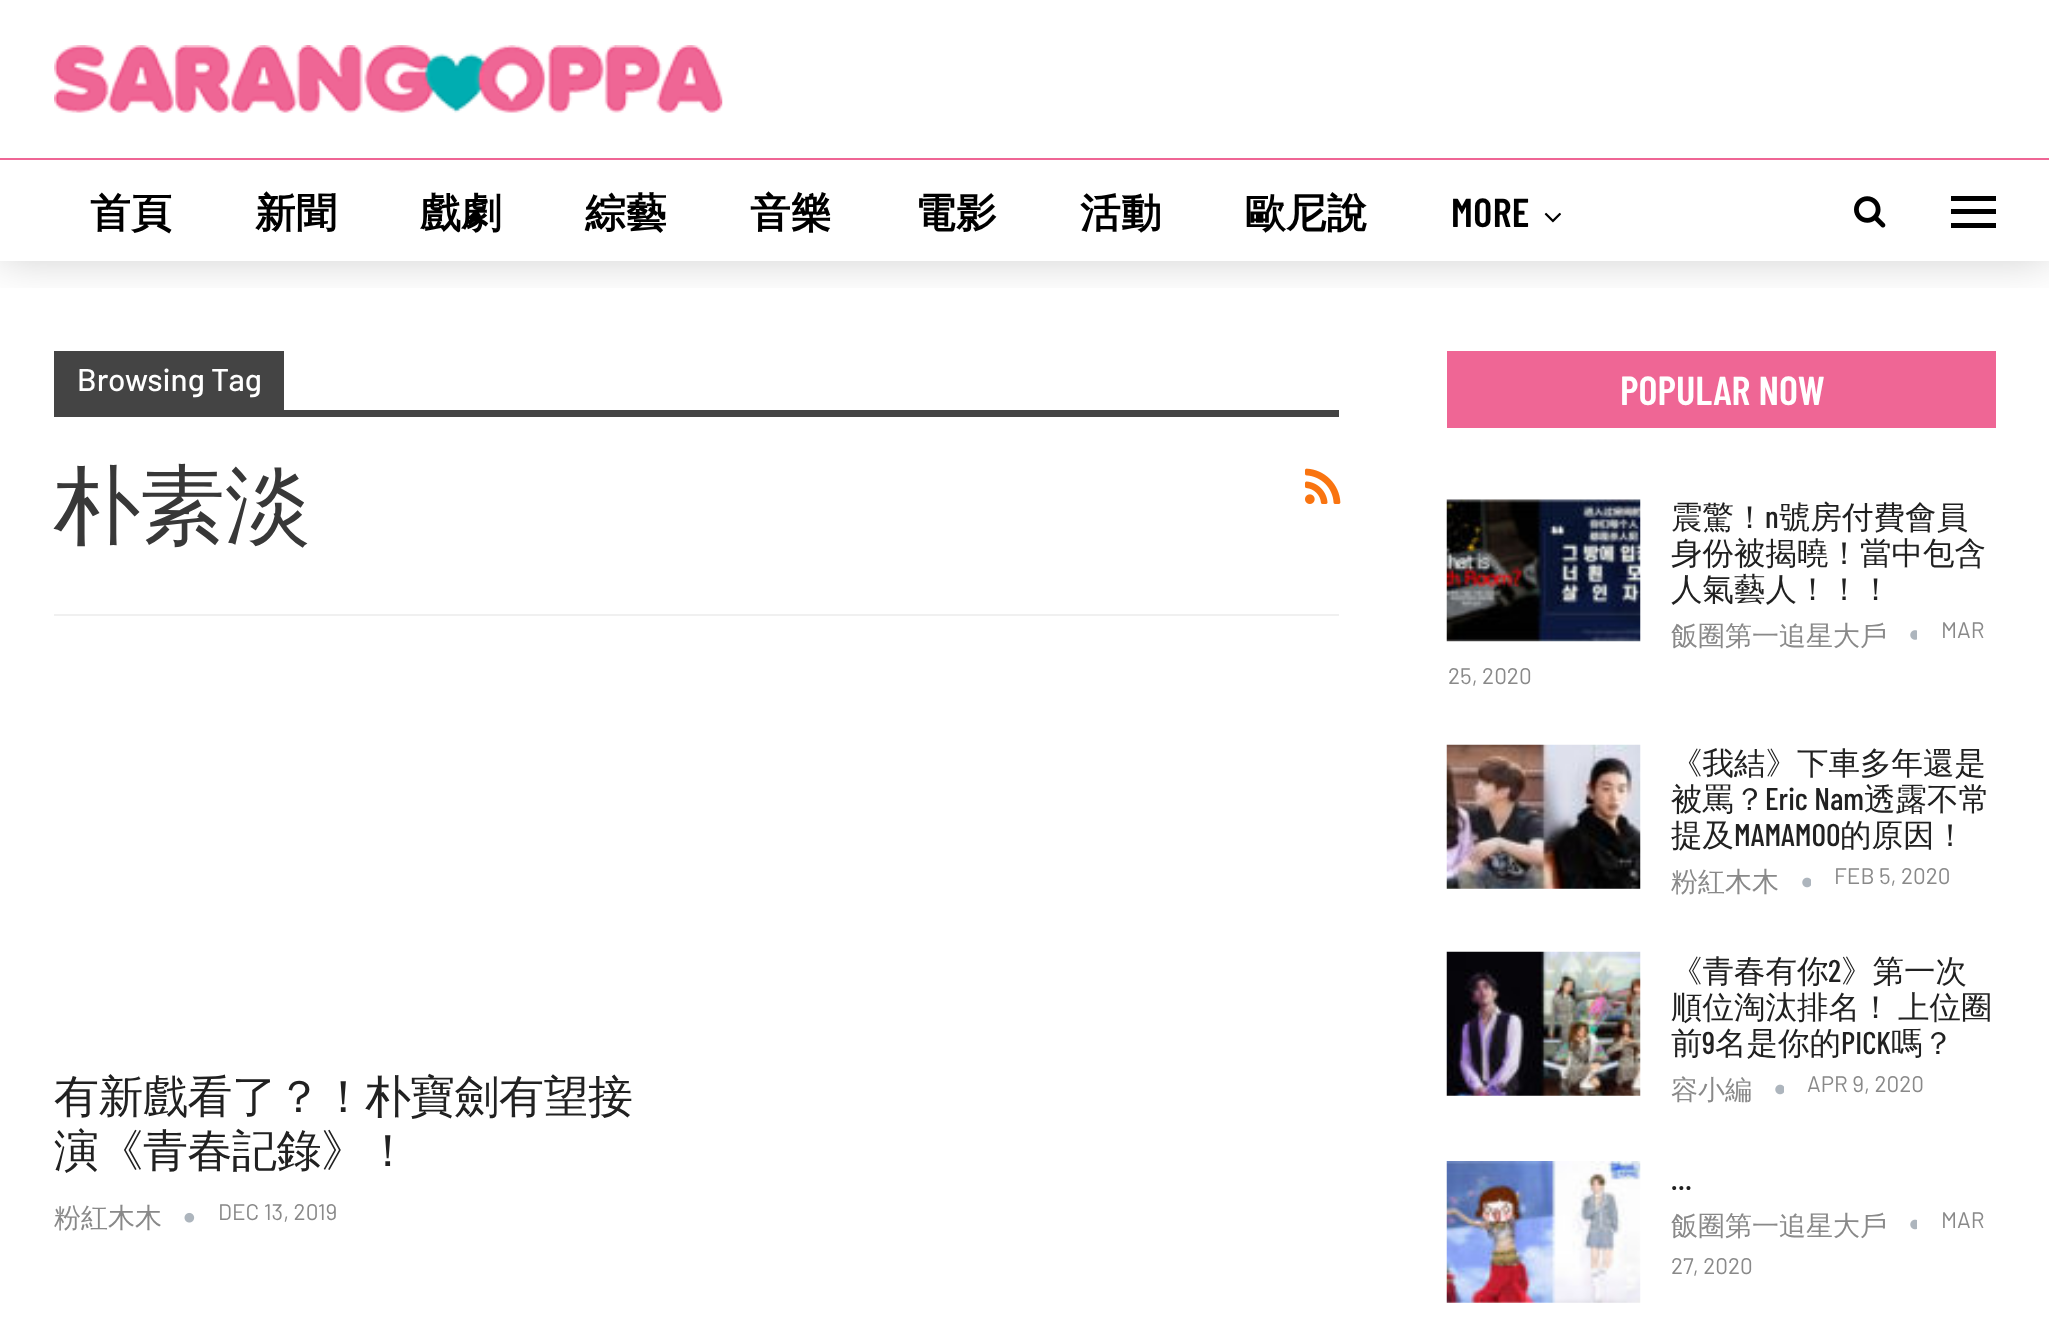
<svg xmlns="http://www.w3.org/2000/svg" width="2049" height="1325">
<style>
.a{font:bold 40.5px WenQuanYi Zen Hei;letter-spacing:0.5px;fill:#000}
.b{font:600 40.5px Barlow Condensed;letter-spacing:0.5px;fill:#000}
.c{font:500 31.5px Barlow;fill:#fff}
.d{font:500 85.5px WenQuanYi Zen Hei;fill:#383838}
.e{font:500 45px WenQuanYi Zen Hei;letter-spacing:-0.5px;fill:#212121}
.f{font:500 27px WenQuanYi Zen Hei;fill:#898989}
.g{font:22.5px Barlow;fill:#898989}
.h{font:600 40.5px Barlow Condensed;fill:#fff}
.i{font:500 31.5px WenQuanYi Zen Hei;fill:#212121}
.j{font:500 31.5px Barlow Condensed;fill:#212121}
</style>
<defs>
<clipPath id="clip1"><path d="M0 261h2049v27H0z"/></clipPath>
</defs>
<rect width="100%" height="100%" fill="#fff"/>
<g clip-path="url(#clip1)">
<path fill="#00000033" filter="blur(22.5px)" d="M0 -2h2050v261H0z"/>
</g>
<image href="1.png" x="54" y="45" width="669" height="68"/>
<path fill="#ef6695" d="M0 158h2049v2H0z"/>
<image href="2.png" x="1544" y="212" width="17" height="11"/>
<image href="3.png" x="1854" y="196" width="32" height="32"/>
<path fill="#000" d="M1951 209h45v5H1951z"/>
<path fill="#000" d="M1951 196h45v5H1951z"/>
<path fill="#000" d="M1951 223h45v5H1951z"/>
<path fill="#f0f0f0" d="M54 614h1285v2H54z"/>
<path fill="#444" d="M54 351h230v59H54z"/>
<path fill="#444" d="M54 410h1285v7H54z"/>
<image href="4.png" x="1305" y="468" width="36" height="36"/>
<image href="5.png" x="184" y="1212" width="11" height="11"/>
<path fill="#ef6695" d="M1447 351h549v77H1447z"/>
<image href="6.png" x="1446" y="499" width="195" height="143"/>
<image href="7.png" x="1910" y="630" width="7" height="10"/>
<image href="8.png" x="1446" y="744" width="195" height="145"/>
<image href="9.png" x="1802" y="877" width="9" height="11"/>
<image href="10.png" x="1446" y="951" width="195" height="145"/>
<image href="9.png" x="1775" y="1084" width="9" height="11"/>
<image href="11.png" x="1446" y="1161" width="195" height="142"/>
<image href="12.png" x="1910" y="1219" width="7" height="11"/>
<text class="a" x="90" y="227">首頁</text>
<text class="a" x="255" y="227">新聞</text>
<text class="a" x="420" y="227">戲劇</text>
<text class="a" x="585" y="227">綜藝</text>
<text class="a" x="750" y="227">音樂</text>
<text class="a" x="915" y="227">電影</text>
<text class="a" x="1080" y="227">活動</text>
<text class="a" x="1245" y="227">歐尼說</text>
<text class="b" x="1451" y="227">MORE</text>
<text class="c" x="77" y="391">Browsing Tag</text>
<text class="d" x="54" y="535">朴素淡</text>
<text class="e" x="54" y="1112">有新戲看了？！朴寶劍有望接</text>
<text class="e" x="54" y="1166">演《青春記錄》！</text>
<text class="f" x="54" y="1227">粉紅木木</text>
<text class="g" x="218" y="1220">DEC 13, 2019</text>
<text class="h" x="1620" y="405">POPULAR NOW</text>
<text class="i" x="1671" y="528">震驚！</text>
<text class="j" x="1765" y="528">n</text>
<text class="i" x="1779" y="528">號房付費會員</text>
<text class="i" x="1671" y="564">身份被揭曉！當中包含</text>
<text class="i" x="1671" y="600">人氣藝人！！！</text>
<text class="f" x="1671" y="645">飯圈第一追星大戶</text>
<text class="g" x="1941" y="638">MAR</text>
<text class="g" x="1448" y="684">25, 2020</text>
<text class="i" x="1671" y="774">《我結》下車多年還是</text>
<text class="i" x="1671" y="810">被罵？</text>
<text class="j" x="1765" y="810">Eric Nam</text>
<text class="i" x="1864" y="810">透露不常</text>
<text class="i" x="1671" y="846">提及</text>
<text class="j" x="1734" y="846">MAMAMOO</text>
<text class="i" x="1840" y="846">的原因！</text>
<text class="f" x="1671" y="891">粉紅木木</text>
<text class="g" x="1834" y="884">FEB 5, 2020</text>
<text class="i" x="1671" y="982">《青春有你</text>
<text class="j" x="1828" y="982">2</text>
<text class="i" x="1841" y="982">》第一次</text>
<text class="i" x="1671" y="1018" word-spacing="-3">順位淘汰排名！ 上位圈</text>
<text class="i" x="1671" y="1054">前</text>
<text class="j" x="1702" y="1054">9</text>
<text class="i" x="1715" y="1054">名是你的</text>
<text class="j" x="1841" y="1054">PICK</text>
<text class="i" x="1891" y="1054">嗎？</text>
<text class="f" x="1671" y="1099">容小編</text>
<text class="g" x="1807" y="1092">APR 9, 2020</text>
<text class="j" x="1671" y="1190">…</text>
<text class="f" x="1671" y="1235">飯圈第一追星大戶</text>
<text class="g" x="1941" y="1228">MAR</text>
<text class="g" x="1671" y="1274">27, 2020</text>
</svg>
